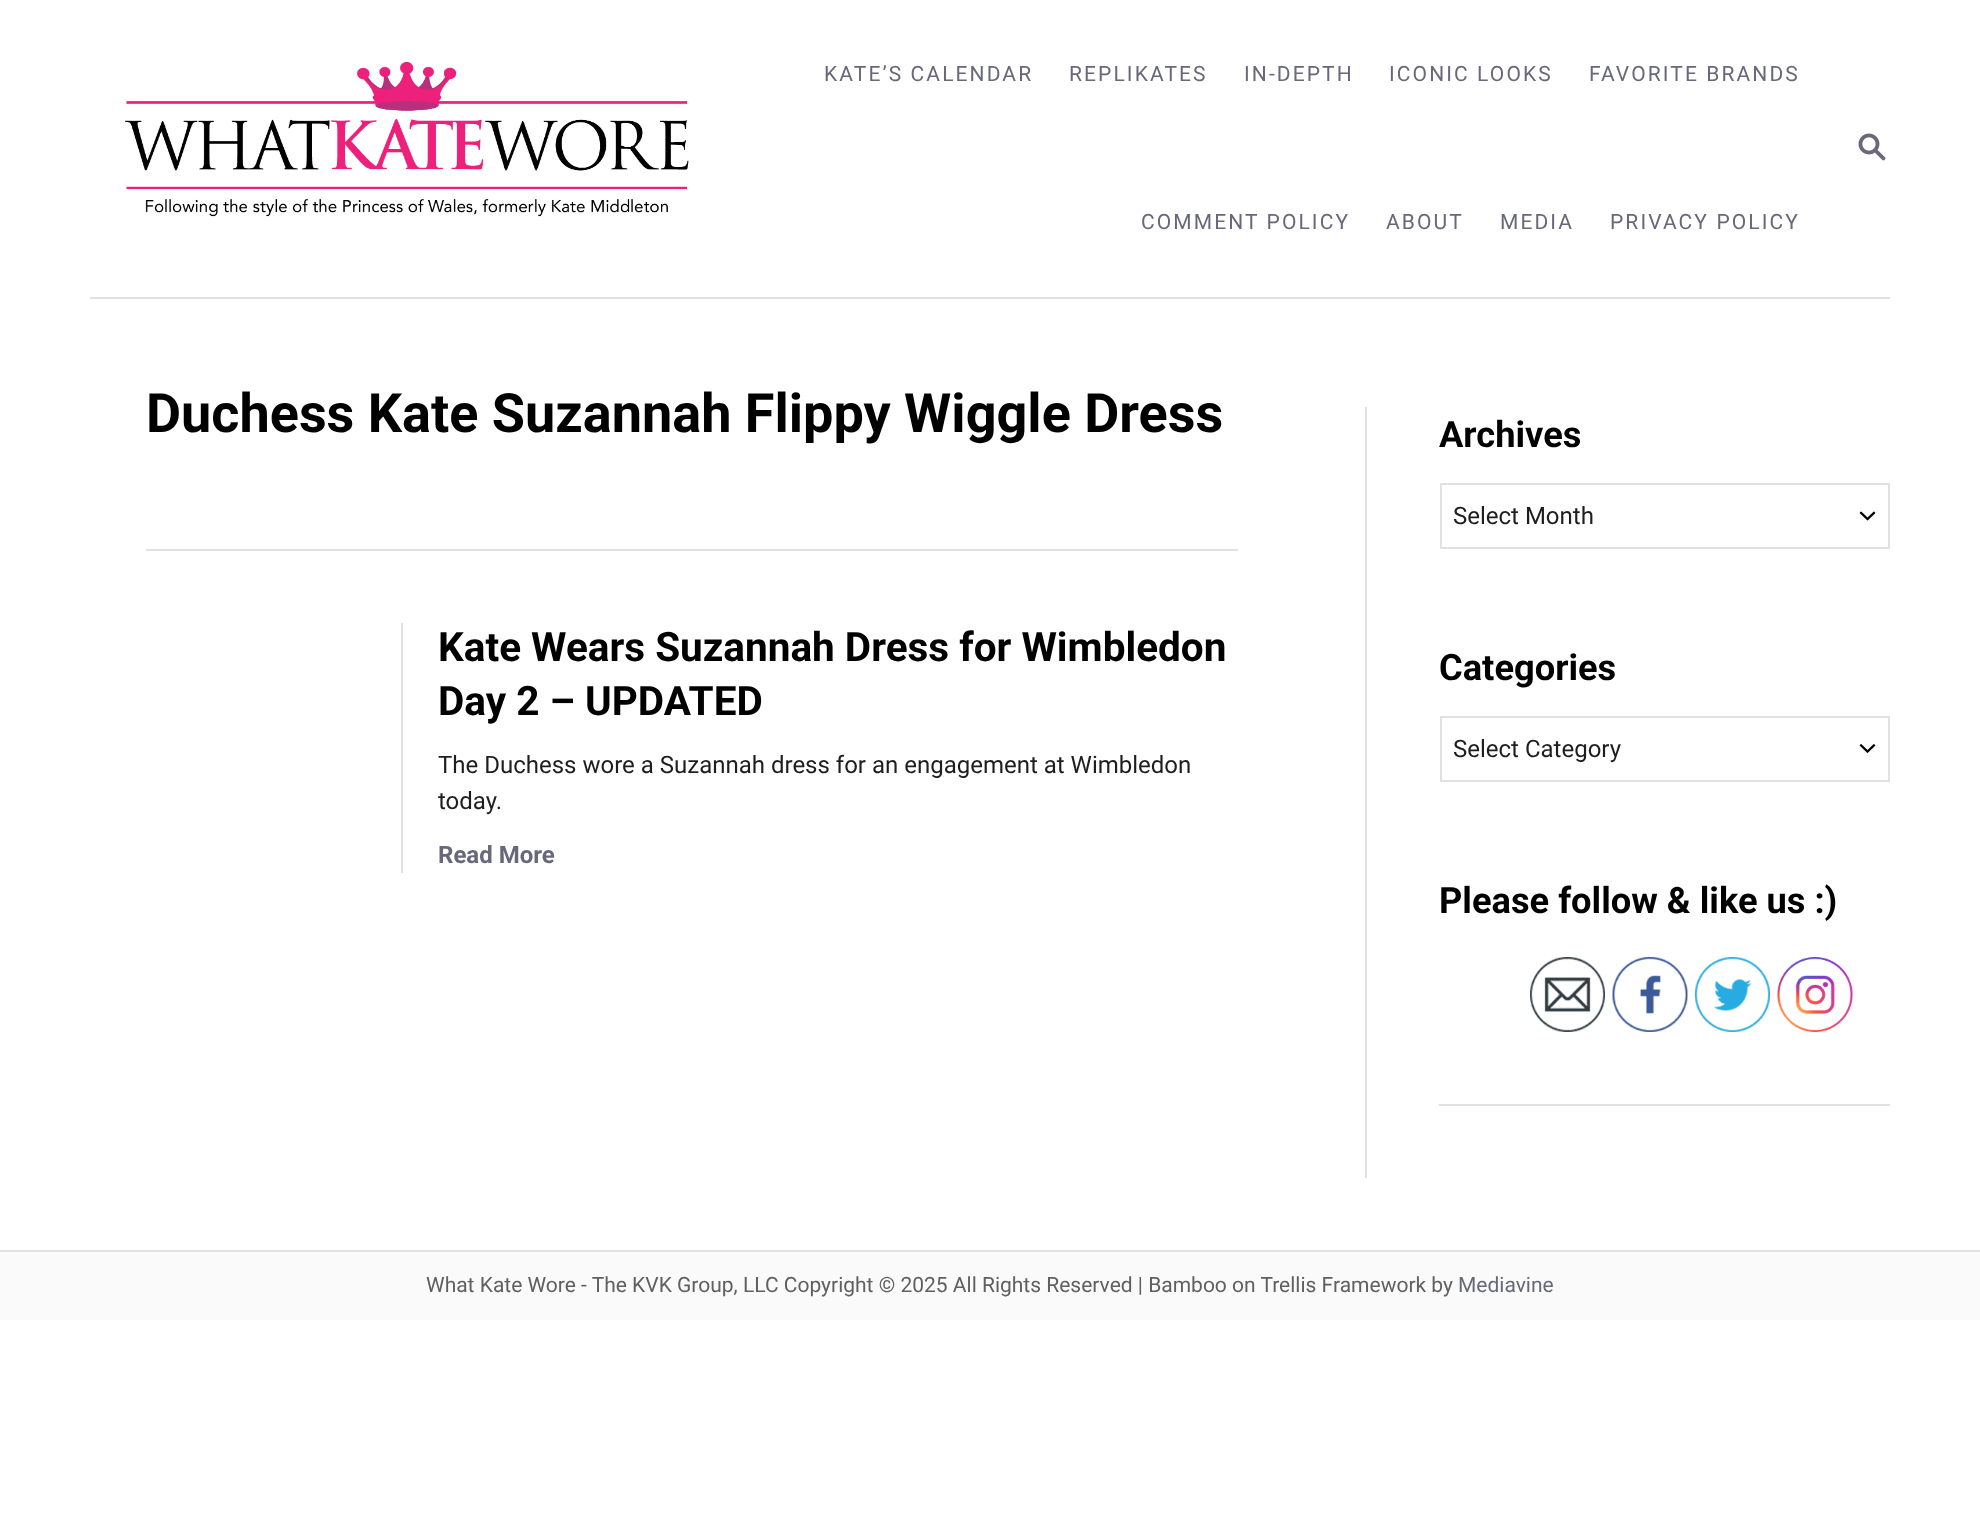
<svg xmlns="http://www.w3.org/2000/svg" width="1980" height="1520">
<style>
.a{font:21px Roboto;letter-spacing:2.1px;fill:#68687a}
.b{font:bold 54px Roboto;fill:#000}
.c{font:bold 40.5px Roboto;fill:#000}
.d{font:24px Roboto;fill:#1e1e1e}
.e{font:bold 24px Roboto;fill:#68687a}
.f{font:bold 36.25px Roboto;fill:#000}
.g{font:21px Roboto;fill:#606060}
.h{font:21px Roboto;fill:#68687a}
</style>
<rect width="100%" height="100%" fill="#fff"/>
<path fill="#e1e1e1" d="M90 297h1800v2H90z"/>
<image href="1.png" x="125" y="61" width="564" height="156"/>
<image href="2.png" x="1858" y="133" width="28" height="28"/>
<path fill="#e1e1e1" d="M146 549h1092v2H146z"/>
<path fill="#e1e1e1" d="M401 623h2v250H401z"/>
<path fill="#e1e1e1" d="M1365 407h2v771H1365z"/>
<image href="3.png" x="1859" y="511" width="17" height="10"/>
<path fill="none" stroke="#e1e1e1" stroke-width="2" d="M1441 484h448v64H1441z"/>
<image href="4.png" x="1859" y="744" width="17" height="9"/>
<path fill="none" stroke="#e1e1e1" stroke-width="2" d="M1441 717h448v64H1441z"/>
<image href="5.png" x="1530" y="957" width="75" height="75"/>
<image href="6.png" x="1612" y="957" width="76" height="75"/>
<image href="7.png" x="1695" y="957" width="75" height="75"/>
<image href="8.png" x="1777" y="957" width="76" height="75"/>
<path fill="#e1e1e1" d="M1439 1104h451v2H1439z"/>
<path fill="#fafafa" d="M0 1252h1980v68H0z"/>
<path fill="#e1e1e1" d="M0 1250h1980v2H0z"/>
<text class="a" x="824" y="81">KATE’S CALENDAR</text>
<text class="a" x="1069" y="81">REPLIKATES</text>
<text class="a" x="1244" y="81">IN-DEPTH</text>
<text class="a" x="1389" y="81">ICONIC LOOKS</text>
<text class="a" x="1589" y="81">FAVORITE BRANDS</text>
<text class="a" x="1141" y="229">COMMENT POLICY</text>
<text class="a" x="1386" y="229">ABOUT</text>
<text class="a" x="1500" y="229">MEDIA</text>
<text class="a" x="1610" y="229">PRIVACY POLICY</text>
<text class="b" x="146" y="432">Duchess Kate Suzannah Flippy Wiggle Dress</text>
<text class="c" x="438" y="661">Kate Wears Suzannah Dress for Wimbledon</text>
<text class="c" x="438" y="715">Day 2 – UPDATED</text>
<text class="d" x="438" y="773">The Duchess wore a Suzannah dress for an engagement at Wimbledon</text>
<text class="d" x="438" y="809">today.</text>
<text class="e" x="438" y="863">Read More</text>
<text class="f" x="1439" y="447">Archives</text>
<text class="d" x="1453" y="524">Select Month</text>
<text class="f" x="1439" y="680">Categories</text>
<text class="d" x="1453" y="757">Select Category</text>
<text class="f" x="1439" y="913">Please follow &amp; like us :)</text>
<text class="g" x="426" y="1292">What Kate Wore - The KVK Group, LLC Copyright © 2025 All Rights Reserved | Bamboo on Trellis Framework by</text>
<text class="h" x="1458" y="1292">Mediavine</text>
</svg>
